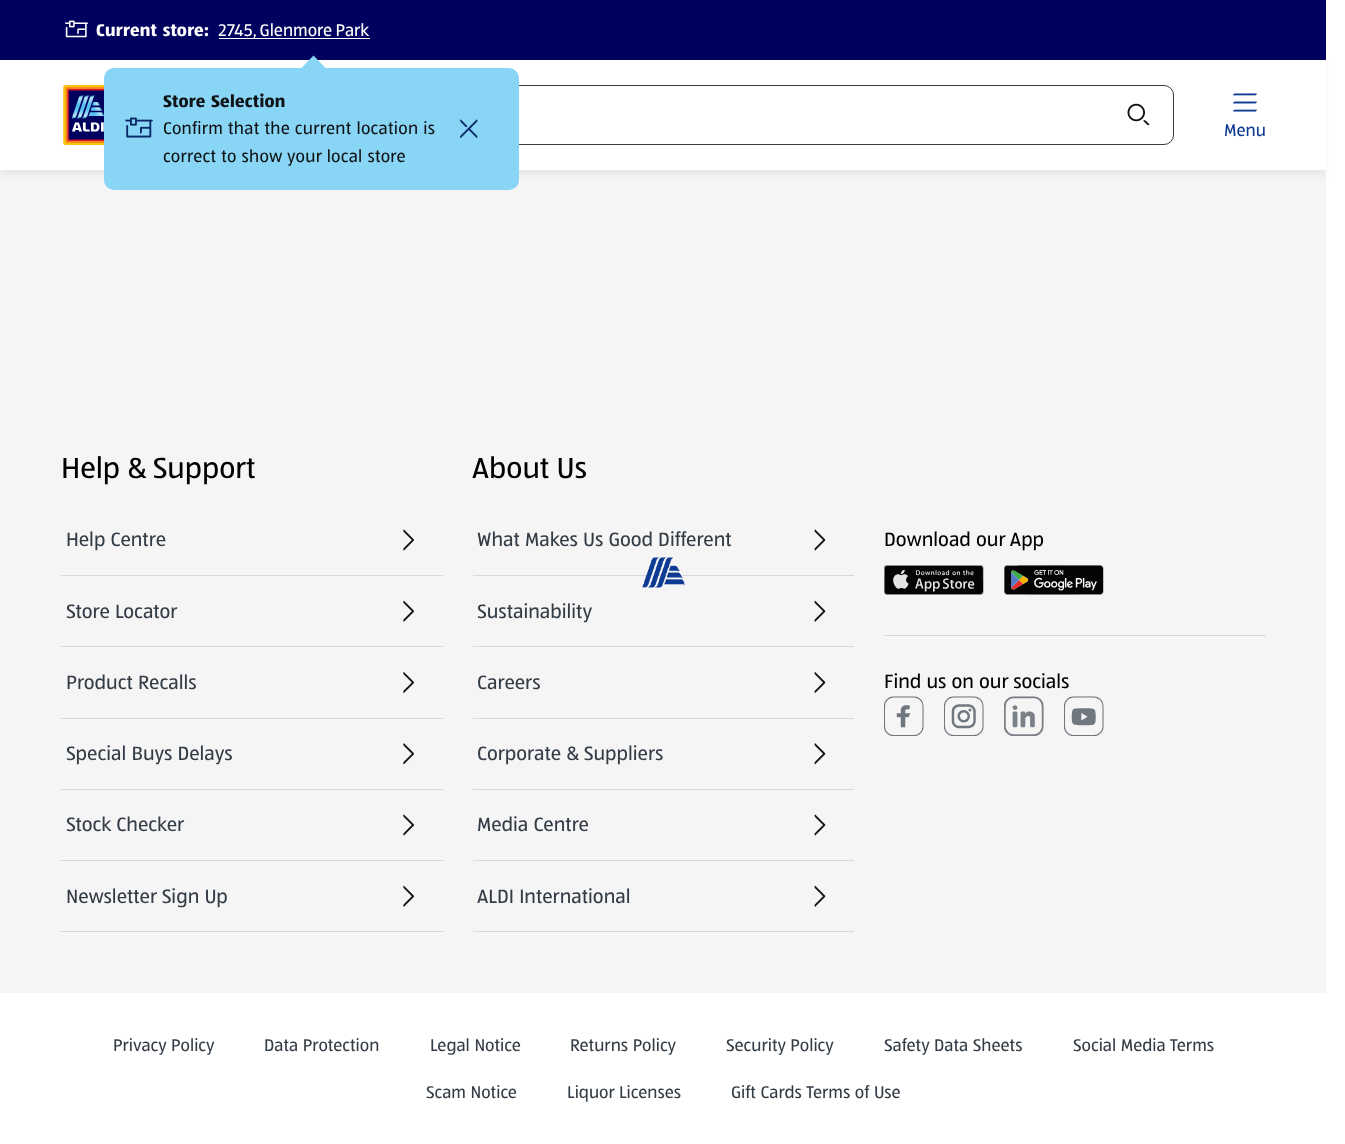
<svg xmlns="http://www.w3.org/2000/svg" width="1345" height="1144">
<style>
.a{font:bold 17.5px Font;letter-spacing:0.25px;fill:#fff}
.b{font:17.5px Font;fill:#fff}
.c{font:bold 17.5px Font;letter-spacing:0.25px;fill:#101316}
.d{font:17.5px Font;letter-spacing:0.25px;fill:#101316}
.e{font:17.5px Font;fill:#0d3a93}
.f{font:30px Font;fill:#000}
.g{font:20px Font;fill:#343d46}
.h{font:20px Font;fill:#000}
.i{font:17.5px Font;fill:#343d46}
</style>
<defs>
<clipPath id="clip1"><path d="M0 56h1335v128h-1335zm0 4h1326v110h-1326z" clip-rule="evenodd"/></clipPath>
</defs>
<rect width="100%" height="100%" fill="#fff"/>
<path fill="#f5f5f6" d="M0 170h1326v823H0z"/>
<g clip-path="url(#clip1)">
<path fill="#c1c4c740" filter="blur(2.5px)" d="M0 65h1326v110H0z"/>
</g>
<path fill="#00005f" d="M0 0h1326v60H0z"/>
<image href="1.png" x="64" y="20" width="24" height="18"/>
<path fill="#fff" d="M219 38h151v1H219z"/>
<rect fill="none" stroke="#343d46" x="173.5" y="85.5" width="1000" height="59" rx="9.5"/>
<rect fill="#88d5f5" x="104" y="68" width="415" height="122" rx="10"/>
<path fill="#88d5f5" d="M313.5 55.5l14 14.5l-14 14l-14-14z"/>
<image href="2.png" x="125" y="117" width="28" height="21"/>
<image href="3.png" x="460" y="119" width="18" height="20"/>
<image href="4.png" x="63" y="85" width="41" height="60"/>
<image href="5.png" x="1127" y="103" width="23" height="23"/>
<image href="6.png" x="1233" y="93" width="24" height="19"/>
<path fill="#d6d8da" d="M473 575h381v1H473z"/>
<image href="7.png" x="642" y="557" width="43" height="31"/>
<path fill="#d6d8da" d="M61 575h382v1H61z"/>
<image href="8.png" x="403" y="529" width="11" height="22"/>
<path fill="#d6d8da" d="M61 646h382v1H61z"/>
<image href="9.png" x="403" y="600" width="11" height="22"/>
<path fill="#d6d8da" d="M61 718h382v1H61z"/>
<image href="10.png" x="403" y="672" width="11" height="21"/>
<path fill="#d6d8da" d="M61 789h382v1H61z"/>
<image href="11.png" x="403" y="743" width="11" height="22"/>
<path fill="#d6d8da" d="M61 860h382v1H61z"/>
<image href="8.png" x="403" y="814" width="11" height="22"/>
<path fill="#d6d8da" d="M61 931h382v1H61z"/>
<image href="9.png" x="403" y="885" width="11" height="22"/>
<image href="12.png" x="814" y="529" width="12" height="22"/>
<path fill="#d6d8da" d="M473 646h381v1H473z"/>
<image href="13.png" x="814" y="600" width="12" height="22"/>
<path fill="#d6d8da" d="M473 718h381v1H473z"/>
<image href="14.png" x="814" y="672" width="12" height="21"/>
<path fill="#d6d8da" d="M473 789h381v1H473z"/>
<image href="15.png" x="814" y="743" width="12" height="22"/>
<path fill="#d6d8da" d="M473 860h381v1H473z"/>
<image href="12.png" x="814" y="814" width="12" height="22"/>
<path fill="#d6d8da" d="M473 931h381v1H473z"/>
<image href="13.png" x="814" y="885" width="12" height="22"/>
<path fill="#d6d8da" d="M884 635h382v1H884z"/>
<image href="16.png" x="884" y="565" width="100" height="30"/>
<image href="17.png" x="1004" y="565" width="100" height="30"/>
<image href="18.png" x="884" y="696" width="40" height="40"/>
<image href="19.png" x="944" y="696" width="40" height="40"/>
<image href="20.png" x="1004" y="696" width="40" height="40"/>
<image href="21.png" x="1064" y="696" width="40" height="40"/>
<text class="a" x="96" y="36" word-spacing="1.25">Current store:</text>
<text class="b" x="218" y="36">2745, Glenmore Park</text>
<text class="c" x="163" y="107" word-spacing="1.25">Store Selection</text>
<text class="d" x="163" y="134" word-spacing="1.25">Confirm that the current location is</text>
<text class="d" x="163" y="162" word-spacing="1.25">correct to show your local store</text>
<text class="e" x="1224" y="136">Menu</text>
<text class="f" x="61" y="478" word-spacing="1.25">Help &amp; Support</text>
<text class="g" x="66" y="546" word-spacing="1.25">Help Centre</text>
<text class="g" x="66" y="618" word-spacing="1.25">Store Locator</text>
<text class="g" x="66" y="689" word-spacing="1.25">Product Recalls</text>
<text class="g" x="66" y="760" word-spacing="1.25">Special Buys Delays</text>
<text class="g" x="66" y="831" word-spacing="1.25">Stock Checker</text>
<text class="g" x="66" y="903" word-spacing="1.25">Newsletter Sign Up</text>
<text class="f" x="472" y="478" word-spacing="1.25">About Us</text>
<text class="g" x="477" y="546" word-spacing="1.25">What Makes Us Good Different</text>
<text class="g" x="477" y="618">Sustainability</text>
<text class="g" x="477" y="689">Careers</text>
<text class="g" x="477" y="760" word-spacing="1.25">Corporate &amp; Suppliers</text>
<text class="g" x="477" y="831" word-spacing="1.25">Media Centre</text>
<text class="g" x="477" y="903" word-spacing="1.25">ALDI International</text>
<text class="h" x="884" y="546" word-spacing="1.25">Download our App</text>
<text class="h" x="884" y="688" word-spacing="1.25">Find us on our socials</text>
<text class="i" x="113" y="1051" word-spacing="1.25">Privacy Policy</text>
<text class="i" x="264" y="1051" word-spacing="1.25">Data Protection</text>
<text class="i" x="430" y="1051" word-spacing="1.25">Legal Notice</text>
<text class="i" x="570" y="1051" word-spacing="1.25">Returns Policy</text>
<text class="i" x="726" y="1051" word-spacing="1.25">Security Policy</text>
<text class="i" x="884" y="1051" word-spacing="1.25">Safety Data Sheets</text>
<text class="i" x="1073" y="1051" word-spacing="1.25">Social Media Terms</text>
<text class="i" x="426" y="1098" word-spacing="1.25">Scam Notice</text>
<text class="i" x="567" y="1098" word-spacing="1.25">Liquor Licenses</text>
<text class="i" x="731" y="1098" word-spacing="1.25">Gift Cards Terms of Use</text>
</svg>
